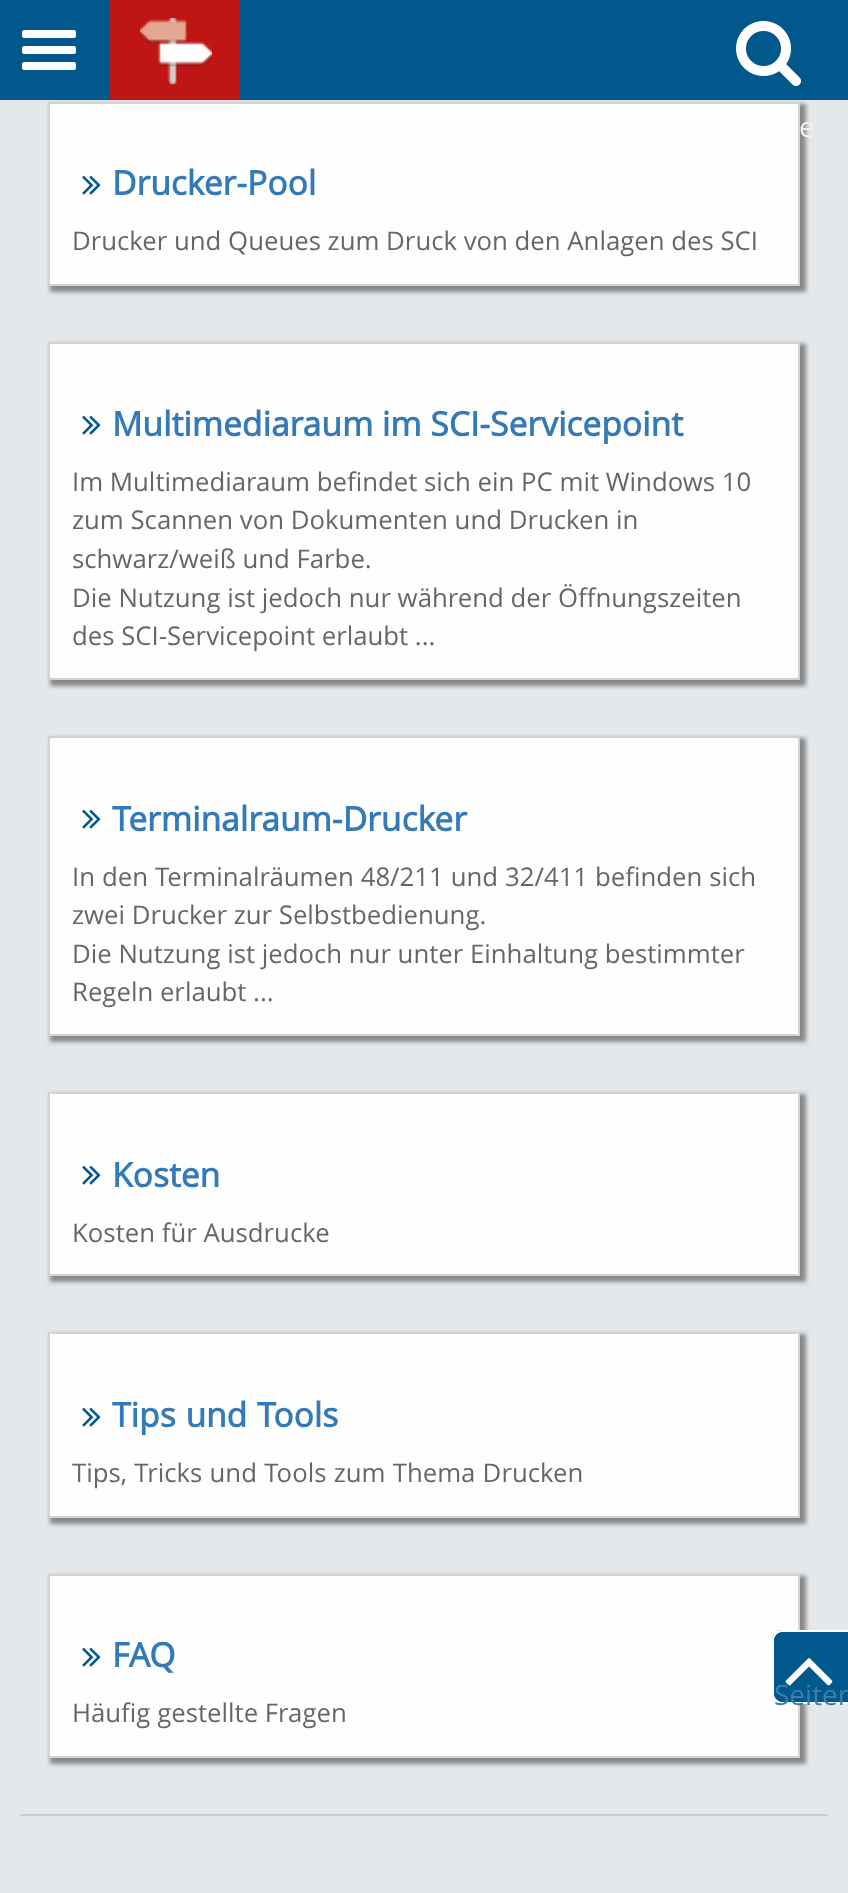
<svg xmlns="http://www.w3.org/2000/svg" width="848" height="1893">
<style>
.a{font:28px Open Sans;fill:#eff0f0}
.b{font:bold 33.6px Open Sans;fill:#337ab7}
.c{font:25.75px Open Sans;fill:#666}
.d{font:28px Open Sans;fill:#3d7ea7}
</style>
<rect width="100%" height="100%" fill="#e4e8eb"/>
<path fill="#888" filter="blur(2px)" d="M50 104h756v188H50z"/>
<path fill="#01588d" d="M0 0h848v100H0z"/>
<rect fill="#fff" x="22" y="30" width="54" height="8" rx="2"/>
<rect fill="#fff" x="22" y="46" width="54" height="8" rx="2"/>
<rect fill="#fff" x="22" y="62" width="54" height="8" rx="2"/>
<path fill="#bf1515" d="M110 0h130v100H110z"/>
<image href="1.png" x="140" y="18" width="72" height="67"/>
<image href="2.png" x="736" y="21" width="65" height="65"/>
<path fill="#fefefe" stroke="#d3d3d3" stroke-width="2" d="M49 103h750v182H49z"/>
<image href="3.png" x="82" y="175" width="19" height="20"/>
<path fill="#888" filter="blur(2px)" d="M50 344h756v342H50z"/>
<path fill="#fefefe" stroke="#d3d3d3" stroke-width="2" d="M49 343h750v336H49z"/>
<image href="3.png" x="82" y="415" width="19" height="20"/>
<path fill="#888" filter="blur(2px)" d="M50 738h756v304H50z"/>
<path fill="#fefefe" stroke="#d3d3d3" stroke-width="2" d="M49 737h750v298H49z"/>
<image href="3.png" x="82" y="809" width="19" height="20"/>
<path fill="#888" filter="blur(2px)" d="M50 1094h756v188H50z"/>
<path fill="#fefefe" stroke="#d3d3d3" stroke-width="2" d="M49 1093h750v182H49z"/>
<image href="3.png" x="82" y="1165" width="19" height="20"/>
<path fill="#888" filter="blur(2px)" d="M50 1334h756v190H50z"/>
<path fill="#fefefe" stroke="#d3d3d3" stroke-width="2" d="M49 1333h750v184H49z"/>
<image href="3.png" x="82" y="1407" width="19" height="20"/>
<path fill="#888" filter="blur(2px)" d="M50 1576h756v188H50z"/>
<path fill="#fefefe" stroke="#d3d3d3" stroke-width="2" d="M49 1575h750v182H49z"/>
<image href="3.png" x="82" y="1647" width="19" height="20"/>
<path fill="#ccc" d="M20 1814h808v2H20z"/>
<path fill="#01588d" d="M782 1630h66v74h-66c-5.5 0-10-4.5-10-10v-54c0-5.5 4.5-10 10-10z"/>
<path fill="#fff" fill-rule="evenodd" d="M782 1630h66v74h-66c-6 0-10-4-10-10v-54c0-6 4-10 10-10zm0 2h66v70h-66c-4 0-8-4-8-8v-54c0-4 4-8 8-8z"/>
<text class="a" x="799" y="137">e</text>
<text class="b" x="112" y="195">Drucker-Pool</text>
<text class="c" x="72" y="250">Drucker und Queues zum Druck von den Anlagen des SCI</text>
<text class="b" x="112" y="436">Multimediaraum im SCI-Servicepoint</text>
<text class="c" x="72" y="491">Im Multimediaraum befindet sich ein PC mit Windows 10</text>
<text class="c" x="72" y="529">zum Scannen von Dokumenten und Drucken in</text>
<text class="c" x="72" y="568">schwarz/weiß und Farbe.</text>
<text class="c" x="72" y="607">Die Nutzung ist jedoch nur während der Öffnungszeiten</text>
<text class="c" x="72" y="645">des SCI-Servicepoint erlaubt ...</text>
<text class="b" x="112" y="831">Terminalraum-Drucker</text>
<text class="c" x="72" y="886" word-spacing="0.25">In den Terminalräumen 48/211 und 32/411 befinden sich</text>
<text class="c" x="72" y="924">zwei Drucker zur Selbstbedienung.</text>
<text class="c" x="72" y="963">Die Nutzung ist jedoch nur unter Einhaltung bestimmter</text>
<text class="c" x="72" y="1001">Regeln erlaubt ...</text>
<text class="b" x="112" y="1187">Kosten</text>
<text class="c" x="72" y="1242">Kosten für Ausdrucke</text>
<text class="b" x="112" y="1427" word-spacing="1">Tips und Tools</text>
<text class="c" x="72" y="1482" word-spacing="0.5">Tips, Tricks und Tools zum Thema Drucken</text>
<text class="b" x="112" y="1667">FAQ</text>
<text class="c" x="72" y="1722">Häufig gestellte Fragen</text>
<text class="d" x="774" y="1705">Seiten</text>
<image href="4.png" x="785" y="1658" width="48" height="28"/>
</svg>
